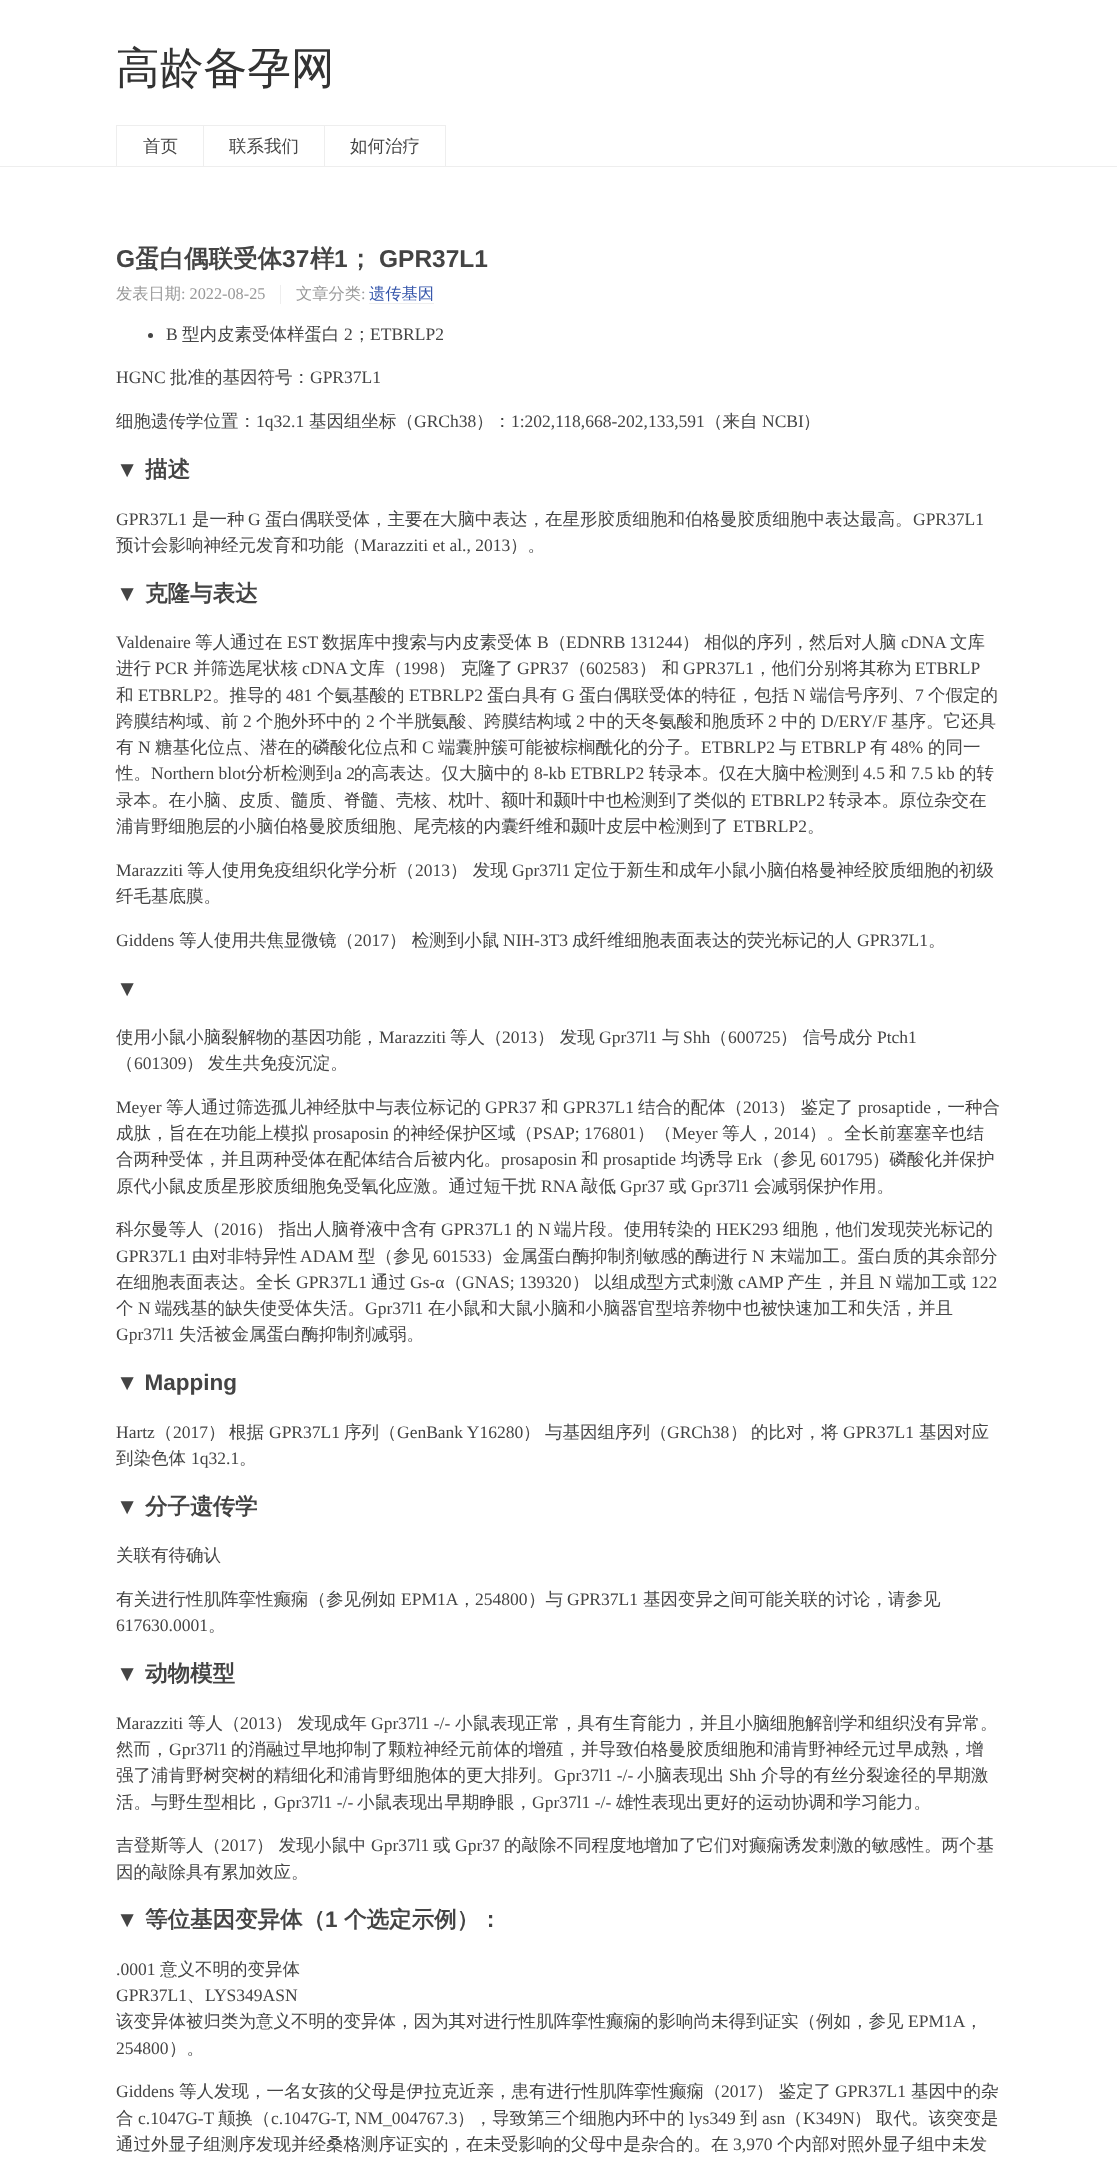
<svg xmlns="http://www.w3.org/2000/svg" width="1117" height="2170">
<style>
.a{font:500 43.75px WenQuanYi Zen Hei;fill:#333}
.b{font:500 17.5px WenQuanYi Zen Hei;fill:#444}
.c{font:bold 24.5px Liberation Sans;fill:#444}
.d{font:bold 24.5px WenQuanYi Zen Hei;fill:#444}
.e{font:500 16.25px WenQuanYi Zen Hei;fill:#999}
.f{font:16.25px Liberation Serif;fill:#999}
.g{font:500 16.25px WenQuanYi Zen Hei;fill:#3354aa}
.h{font:17.5px Liberation Serif;fill:#444}
.i{font:bold 22.5px Liberation Sans;fill:#444}
.j{font:bold 22.5px WenQuanYi Zen Hei;fill:#444}
</style>
<rect width="100%" height="100%" fill="#fff"/>
<path fill="#eee" d="M0 166h1117v1H0z"/>
<path fill="#eee" d="M116 125h88v1H116z"/>
<path fill="#eee" d="M203 125h1v41H203z"/>
<path fill="#eee" d="M116 125h1v41H116z"/>
<path fill="#eee" d="M203 125h122v1H203z"/>
<path fill="#eee" d="M324 125h1v41H324z"/>
<path fill="#eee" d="M324 125h122v1H324z"/>
<path fill="#eee" d="M445 125h1v41H445z"/>
<path fill="#eee" d="M280 285h1v19H280z"/>
<path fill="#eee" d="M369 303h65v1H369z"/>
<circle fill="#444" cx="150.5" cy="335.5" r="2.5"/>
<text class="a" x="116" y="83">高龄备孕网</text>
<text class="b" x="143" y="152">首页</text>
<text class="b" x="229" y="152">联系我们</text>
<text class="b" x="350" y="152">如何治疗</text>
<text class="c" x="116" y="267">G</text>
<text class="d" x="135" y="267">蛋白偶联受体</text>
<text class="c" x="282" y="267">37</text>
<text class="d" x="310" y="267">样</text>
<text class="c" x="334" y="267">1</text>
<text class="d" x="348" y="267">；</text>
<text class="c" x="379" y="267">GPR37L1</text>
<text class="e" x="116" y="299">发表日期</text>
<text class="f" x="181" y="299">: 2022-08-25</text>
<text class="e" x="296" y="299">文章分类</text>
<text class="f" x="361" y="299">:</text>
<text class="g" x="369" y="299">遗传基因</text>
<text class="h" x="166" y="340">B</text>
<text class="b" x="182" y="340">型内皮素受体样蛋白</text>
<text class="h" x="344" y="340">2</text>
<text class="b" x="353" y="340">；</text>
<text class="h" x="370" y="340">ETBRLP2</text>
<text class="h" x="116" y="383">HGNC</text>
<text class="b" x="170" y="383">批准的基因符号：</text>
<text class="h" x="310" y="383">GPR37L1</text>
<text class="b" x="116" y="427">细胞遗传学位置：</text>
<text class="h" x="256" y="427">1q32.1</text>
<text class="b" x="309" y="427">基因组坐标（</text>
<text class="h" x="414" y="427">GRCh38</text>
<text class="b" x="476" y="427">）：</text>
<text class="h" x="511" y="427">1:202,118,668-202,133,591</text>
<text class="b" x="705" y="427">（来自</text>
<text class="h" x="762" y="427">NCBI</text>
<text class="b" x="803" y="427">）</text>
<text class="i" x="116" y="477">▼</text>
<text class="j" x="145" y="477">描述</text>
<text class="h" x="116" y="525">GPR37L1</text>
<text class="b" x="192" y="525">是一种</text>
<text class="h" x="248" y="525">G</text>
<text class="b" x="265" y="525">蛋白偶联受体，主要在大脑中表达，在星形胶质细胞和伯格曼胶质细胞中表达最高。</text>
<text class="h" x="913" y="525">GPR37L1</text>
<text class="b" x="116" y="551">预计会影响神经元发育和功能（</text>
<text class="h" x="361" y="551">Marazziti et al., 2013</text>
<text class="b" x="510" y="551">）。</text>
<text class="i" x="116" y="601">▼</text>
<text class="j" x="145" y="601">克隆与表达</text>
<text class="h" x="116" y="648">Valdenaire</text>
<text class="b" x="195" y="648">等人通过在</text>
<text class="h" x="287" y="648">EST</text>
<text class="b" x="322" y="648">数据库中搜索与内皮素受体</text>
<text class="h" x="537" y="648">B</text>
<text class="b" x="549" y="648">（</text>
<text class="h" x="566" y="648">EDNRB 131244</text>
<text class="b" x="682" y="648">）</text>
<text class="b" x="704" y="648">相似的序列，然后对人脑</text>
<text class="h" x="901" y="648">cDNA</text>
<text class="b" x="950" y="648">文库</text>
<text class="b" x="116" y="674">进行</text>
<text class="h" x="155" y="674">PCR</text>
<text class="b" x="193" y="674">并筛选尾状核</text>
<text class="h" x="302" y="674">cDNA</text>
<text class="b" x="350" y="674">文库（</text>
<text class="h" x="403" y="674">1998</text>
<text class="b" x="438" y="674">） 克隆了</text>
<text class="h" x="517" y="674">GPR37</text>
<text class="b" x="569" y="674">（</text>
<text class="h" x="586" y="674">602583</text>
<text class="b" x="639" y="674">） 和</text>
<text class="h" x="683" y="674">GPR37L1</text>
<text class="b" x="754" y="674">，他们分别将其称为</text>
<text class="h" x="915" y="674">ETBRLP</text>
<text class="b" x="116" y="701">和</text>
<text class="h" x="138" y="701">ETBRLP2</text>
<text class="b" x="212" y="701">。推导的</text>
<text class="h" x="286" y="701">481</text>
<text class="b" x="317" y="701">个氨基酸的</text>
<text class="h" x="409" y="701">ETBRLP2</text>
<text class="b" x="487" y="701">蛋白具有</text>
<text class="h" x="562" y="701">G</text>
<text class="b" x="579" y="701">蛋白偶联受体的特征，包括</text>
<text class="h" x="793" y="701">N</text>
<text class="b" x="810" y="701">端信号序列、</text>
<text class="h" x="915" y="701">7</text>
<text class="b" x="928" y="701">个假定的</text>
<text class="b" x="116" y="727">跨膜结构域、前</text>
<text class="h" x="243" y="727">2</text>
<text class="b" x="256" y="727">个胞外环中的</text>
<text class="h" x="366" y="727">2</text>
<text class="b" x="379" y="727">个半胱氨酸、跨膜结构域</text>
<text class="h" x="576" y="727">2</text>
<text class="b" x="589" y="727">中的天冬氨酸和胞质环</text>
<text class="h" x="768" y="727">2</text>
<text class="b" x="781" y="727">中的</text>
<text class="h" x="821" y="727">D/ERY/F</text>
<text class="b" x="891" y="727">基序。它还具</text>
<text class="b" x="116" y="753">有</text>
<text class="h" x="138" y="753">N</text>
<text class="b" x="155" y="753">糖基化位点、潜在的磷酸化位点和</text>
<text class="h" x="422" y="753">C</text>
<text class="b" x="438" y="753">端囊肿簇可能被棕榈酰化的分子。</text>
<text class="h" x="701" y="753">ETBRLP2</text>
<text class="b" x="779" y="753">与</text>
<text class="h" x="801" y="753">ETBRLP</text>
<text class="b" x="870" y="753">有</text>
<text class="h" x="891" y="753">48%</text>
<text class="b" x="928" y="753">的同一</text>
<text class="b" x="116" y="779">性。</text>
<text class="h" x="151" y="779">Northern blot</text>
<text class="b" x="246" y="779">分析检测到</text>
<text class="h" x="334" y="779">a 2</text>
<text class="b" x="354" y="779">的高表达。仅大脑中的</text>
<text class="h" x="534" y="779">8-kb ETBRLP2</text>
<text class="b" x="649" y="779">转录本。仅在大脑中检测到</text>
<text class="h" x="863" y="779">4.5</text>
<text class="b" x="889" y="779">和</text>
<text class="h" x="911" y="779">7.5 kb</text>
<text class="b" x="959" y="779">的转</text>
<text class="b" x="116" y="806">录本。在小脑、皮质、髓质、脊髓、壳核、枕叶、额叶和颞叶中也检测到了类似的</text>
<text class="h" x="751" y="806">ETBRLP2</text>
<text class="b" x="829" y="806">转录本。原位杂交在</text>
<text class="b" x="116" y="832">浦肯野细胞层的小脑伯格曼胶质细胞、尾壳核的内囊纤维和颞叶皮层中检测到了</text>
<text class="h" x="733" y="832">ETBRLP2</text>
<text class="b" x="807" y="832">。</text>
<text class="h" x="116" y="876">Marazziti</text>
<text class="b" x="187" y="876">等人使用免疫组织化学分析（</text>
<text class="h" x="415" y="876">2013</text>
<text class="b" x="450" y="876">） 发现</text>
<text class="h" x="512" y="876">Gpr37l1</text>
<text class="b" x="574" y="876">定位于新生和成年小鼠小脑伯格曼神经胶质细胞的初级</text>
<text class="b" x="116" y="902">纤毛基底膜。</text>
<text class="h" x="116" y="946">Giddens</text>
<text class="b" x="179" y="946">等人使用共焦显微镜（</text>
<text class="h" x="354" y="946">2017</text>
<text class="b" x="389" y="946">） 检测到小鼠</text>
<text class="h" x="503" y="946">NIH-3T3</text>
<text class="b" x="572" y="946">成纤维细胞表面表达的荧光标记的人</text>
<text class="h" x="857" y="946">GPR37L1</text>
<text class="b" x="928" y="946">。</text>
<text class="i" x="116" y="996">▼</text>
<text class="b" x="116" y="1043">使用小鼠小脑裂解物的基因功能，</text>
<text class="h" x="379" y="1043">Marazziti</text>
<text class="b" x="450" y="1043">等人（</text>
<text class="h" x="502" y="1043">2013</text>
<text class="b" x="537" y="1043">） 发现</text>
<text class="h" x="599" y="1043">Gpr37l1</text>
<text class="b" x="662" y="1043">与</text>
<text class="h" x="683" y="1043">Shh</text>
<text class="b" x="710" y="1043">（</text>
<text class="h" x="728" y="1043">600725</text>
<text class="b" x="780" y="1043">） 信号成分</text>
<text class="h" x="877" y="1043">Ptch1</text>
<text class="b" x="116" y="1069">（</text>
<text class="h" x="134" y="1069">601309</text>
<text class="b" x="186" y="1069" word-spacing="-1">） 发生共免疫沉淀。</text>
<text class="h" x="116" y="1113">Meyer</text>
<text class="b" x="166" y="1113">等人通过筛选孤儿神经肽中与表位标记的</text>
<text class="h" x="485" y="1113">GPR37</text>
<text class="b" x="541" y="1113">和</text>
<text class="h" x="563" y="1113">GPR37L1</text>
<text class="b" x="638" y="1113">结合的配体（</text>
<text class="h" x="743" y="1113">2013</text>
<text class="b" x="778" y="1113">） 鉴定了</text>
<text class="h" x="858" y="1113">prosaptide</text>
<text class="b" x="930" y="1113">，一种合</text>
<text class="b" x="116" y="1139">成肽，旨在在功能上模拟</text>
<text class="h" x="313" y="1139">prosaposin</text>
<text class="b" x="393" y="1139">的神经保护区域（</text>
<text class="h" x="533" y="1139">PSAP; 176801</text>
<text class="b" x="637" y="1139">）（</text>
<text class="h" x="672" y="1139">Meyer</text>
<text class="b" x="722" y="1139">等人，</text>
<text class="h" x="774" y="1139">2014</text>
<text class="b" x="809" y="1139">）。全长前塞塞辛也结</text>
<text class="b" x="116" y="1165">合两种受体，并且两种受体在配体结合后被内化。</text>
<text class="h" x="501" y="1165">prosaposin</text>
<text class="b" x="581" y="1165">和</text>
<text class="h" x="603" y="1165">prosaptide</text>
<text class="b" x="681" y="1165">均诱导</text>
<text class="h" x="737" y="1165">Erk</text>
<text class="b" x="763" y="1165">（参见</text>
<text class="h" x="820" y="1165">601795</text>
<text class="b" x="872" y="1165">）磷酸化并保护</text>
<text class="b" x="116" y="1192">原代小鼠皮质星形胶质细胞免受氧化应激。通过短干扰</text>
<text class="h" x="541" y="1192">RNA</text>
<text class="b" x="581" y="1192">敲低</text>
<text class="h" x="620" y="1192">Gpr37</text>
<text class="b" x="669" y="1192">或</text>
<text class="h" x="691" y="1192">Gpr37l1</text>
<text class="b" x="754" y="1192">会减弱保护作用。</text>
<text class="b" x="116" y="1235">科尔曼等人（</text>
<text class="h" x="221" y="1235">2016</text>
<text class="b" x="256" y="1235">） 指出人脑脊液中含有</text>
<text class="h" x="441" y="1235">GPR37L1</text>
<text class="b" x="516" y="1235">的</text>
<text class="h" x="538" y="1235">N</text>
<text class="b" x="554" y="1235">端片段。使用转染的</text>
<text class="h" x="716" y="1235">HEK293</text>
<text class="b" x="783" y="1235">细胞，他们发现荧光标记的</text>
<text class="h" x="116" y="1262">GPR37L1</text>
<text class="b" x="192" y="1262">由对非特异性</text>
<text class="h" x="300" y="1262">ADAM</text>
<text class="b" x="358" y="1262">型（参见</text>
<text class="h" x="433" y="1262">601533</text>
<text class="b" x="485" y="1262">）金属蛋白酶抑制剂敏感的酶进行</text>
<text class="h" x="752" y="1262">N</text>
<text class="b" x="770" y="1262">末端加工。蛋白质的其余部分</text>
<text class="b" x="116" y="1288">在细胞表面表达。全长</text>
<text class="h" x="296" y="1288">GPR37L1</text>
<text class="b" x="371" y="1288">通过</text>
<text class="h" x="410" y="1288">Gs-α</text>
<text class="b" x="445" y="1288">（</text>
<text class="h" x="462" y="1288">GNAS; 139320</text>
<text class="b" x="572" y="1288">）</text>
<text class="b" x="594" y="1288">以组成型方式刺激</text>
<text class="h" x="738" y="1288">cAMP</text>
<text class="b" x="787" y="1288">产生，并且</text>
<text class="h" x="879" y="1288">N</text>
<text class="b" x="896" y="1288">端加工或</text>
<text class="h" x="971" y="1288">122</text>
<text class="b" x="116" y="1314">个</text>
<text class="h" x="138" y="1314">N</text>
<text class="b" x="155" y="1314">端残基的缺失使受体失活。</text>
<text class="h" x="365" y="1314">Gpr37l1</text>
<text class="b" x="428" y="1314">在小鼠和大鼠小脑和小脑器官型培养物中也被快速加工和失活，并且</text>
<text class="h" x="116" y="1340">Gpr37l1</text>
<text class="b" x="179" y="1340">失活被金属蛋白酶抑制剂减弱。</text>
<text class="i" x="116" y="1390">▼ Mapping</text>
<text class="h" x="116" y="1438">Hartz</text>
<text class="b" x="155" y="1438">（</text>
<text class="h" x="173" y="1438">2017</text>
<text class="b" x="208" y="1438">）</text>
<text class="b" x="229" y="1438">根据</text>
<text class="h" x="269" y="1438">GPR37L1</text>
<text class="b" x="344" y="1438">序列（</text>
<text class="h" x="397" y="1438">GenBank Y16280</text>
<text class="b" x="523" y="1438">）</text>
<text class="b" x="545" y="1438">与基因组序列（</text>
<text class="h" x="667" y="1438">GRCh38</text>
<text class="b" x="730" y="1438">）</text>
<text class="b" x="751" y="1438">的比对，将</text>
<text class="h" x="843" y="1438">GPR37L1</text>
<text class="b" x="919" y="1438">基因对应</text>
<text class="b" x="116" y="1464">到染色体</text>
<text class="h" x="191" y="1464">1q32.1</text>
<text class="b" x="239" y="1464">。</text>
<text class="i" x="116" y="1514">▼</text>
<text class="j" x="145" y="1514">分子遗传学</text>
<text class="b" x="116" y="1561">关联有待确认</text>
<text class="b" x="116" y="1605">有关进行性肌阵挛性癫痫（参见例如</text>
<text class="h" x="401" y="1605">EPM1A</text>
<text class="b" x="458" y="1605">，</text>
<text class="h" x="475" y="1605">254800</text>
<text class="b" x="528" y="1605">）与</text>
<text class="h" x="567" y="1605">GPR37L1</text>
<text class="b" x="643" y="1605">基因变异之间可能关联的讨论，请参见</text>
<text class="h" x="116" y="1631">617630.0001</text>
<text class="b" x="208" y="1631">。</text>
<text class="i" x="116" y="1681">▼</text>
<text class="j" x="145" y="1681">动物模型</text>
<text class="h" x="116" y="1729">Marazziti</text>
<text class="b" x="188" y="1729">等人（</text>
<text class="h" x="240" y="1729">2013</text>
<text class="b" x="275" y="1729">）</text>
<text class="b" x="297" y="1729">发现成年</text>
<text class="h" x="371" y="1729">Gpr37l1 -/-</text>
<text class="b" x="455" y="1729">小鼠表现正常，具有生育能力，并且小脑细胞解剖学和组织没有异常。</text>
<text class="b" x="116" y="1755">然而，</text>
<text class="h" x="169" y="1755">Gpr37l1</text>
<text class="b" x="231" y="1755">的消融过早地抑制了颗粒神经元前体的增殖，并导致伯格曼胶质细胞和浦肯野神经元过早成熟，增</text>
<text class="b" x="116" y="1781">强了浦肯野树突树的精细化和浦肯野细胞体的更大排列。</text>
<text class="h" x="554" y="1781">Gpr37l1 -/-</text>
<text class="b" x="637" y="1781">小脑表现出</text>
<text class="h" x="729" y="1781">Shh</text>
<text class="b" x="761" y="1781">介导的有丝分裂途径的早期激</text>
<text class="b" x="116" y="1808">活。与野生型相比，</text>
<text class="h" x="274" y="1808">Gpr37l1 -/-</text>
<text class="b" x="357" y="1808">小鼠表现出早期睁眼，</text>
<text class="h" x="532" y="1808">Gpr37l1 -/-</text>
<text class="b" x="616" y="1808">雄性表现出更好的运动协调和学习能力。</text>
<text class="b" x="116" y="1851">吉登斯等人（</text>
<text class="h" x="221" y="1851">2017</text>
<text class="b" x="256" y="1851">） 发现小鼠中</text>
<text class="h" x="371" y="1851">Gpr37l1</text>
<text class="b" x="433" y="1851">或</text>
<text class="h" x="455" y="1851">Gpr37</text>
<text class="b" x="504" y="1851">的敲除不同程度地增加了它们对癫痫诱发刺激的敏感性。两个基</text>
<text class="b" x="116" y="1878">因的敲除具有累加效应。</text>
<text class="i" x="116" y="1927">▼</text>
<text class="j" x="145" y="1927">等位基因变异体（</text>
<text class="i" x="325" y="1927">1</text>
<text class="j" x="344" y="1927">个选定示例）：</text>
<text class="h" x="116" y="1975">.0001</text>
<text class="b" x="160" y="1975">意义不明的变异体</text>
<text class="h" x="116" y="2001">GPR37L1</text>
<text class="b" x="187" y="2001">、</text>
<text class="h" x="205" y="2001">LYS349ASN</text>
<text class="b" x="116" y="2027">该变异体被归类为意义不明的变异体，因为其对进行性肌阵挛性癫痫的影响尚未得到证实（例如，参见</text>
<text class="h" x="908" y="2027">EPM1A</text>
<text class="b" x="965" y="2027">，</text>
<text class="h" x="116" y="2054">254800</text>
<text class="b" x="169" y="2054">）。</text>
<text class="h" x="116" y="2097">Giddens</text>
<text class="b" x="179" y="2097">等人发现，一名女孩的父母是伊拉克近亲，患有进行性肌阵挛性癫痫（</text>
<text class="h" x="721" y="2097">2017</text>
<text class="b" x="756" y="2097">） 鉴定了</text>
<text class="h" x="835" y="2097">GPR37L1</text>
<text class="b" x="911" y="2097">基因中的杂</text>
<text class="b" x="116" y="2124">合</text>
<text class="h" x="138" y="2124">c.1047G-T</text>
<text class="b" x="218" y="2124">颠换（</text>
<text class="h" x="271" y="2124">c.1047G-T, NM_004767.3</text>
<text class="b" x="457" y="2124">），导致第三个细胞内环中的</text>
<text class="h" x="689" y="2124">lys349</text>
<text class="b" x="740" y="2124">到</text>
<text class="h" x="762" y="2124">asn</text>
<text class="b" x="785" y="2124">（</text>
<text class="h" x="803" y="2124">K349N</text>
<text class="b" x="854" y="2124">）</text>
<text class="b" x="876" y="2124">取代。该突变是</text>
<text class="b" x="116" y="2150">通过外显子组测序发现并经桑格测序证实的，在未受影响的父母中是杂合的。在</text>
<text class="h" x="733" y="2150">3,970</text>
<text class="b" x="777" y="2150">个内部对照外显子组中未发</text>
</svg>
